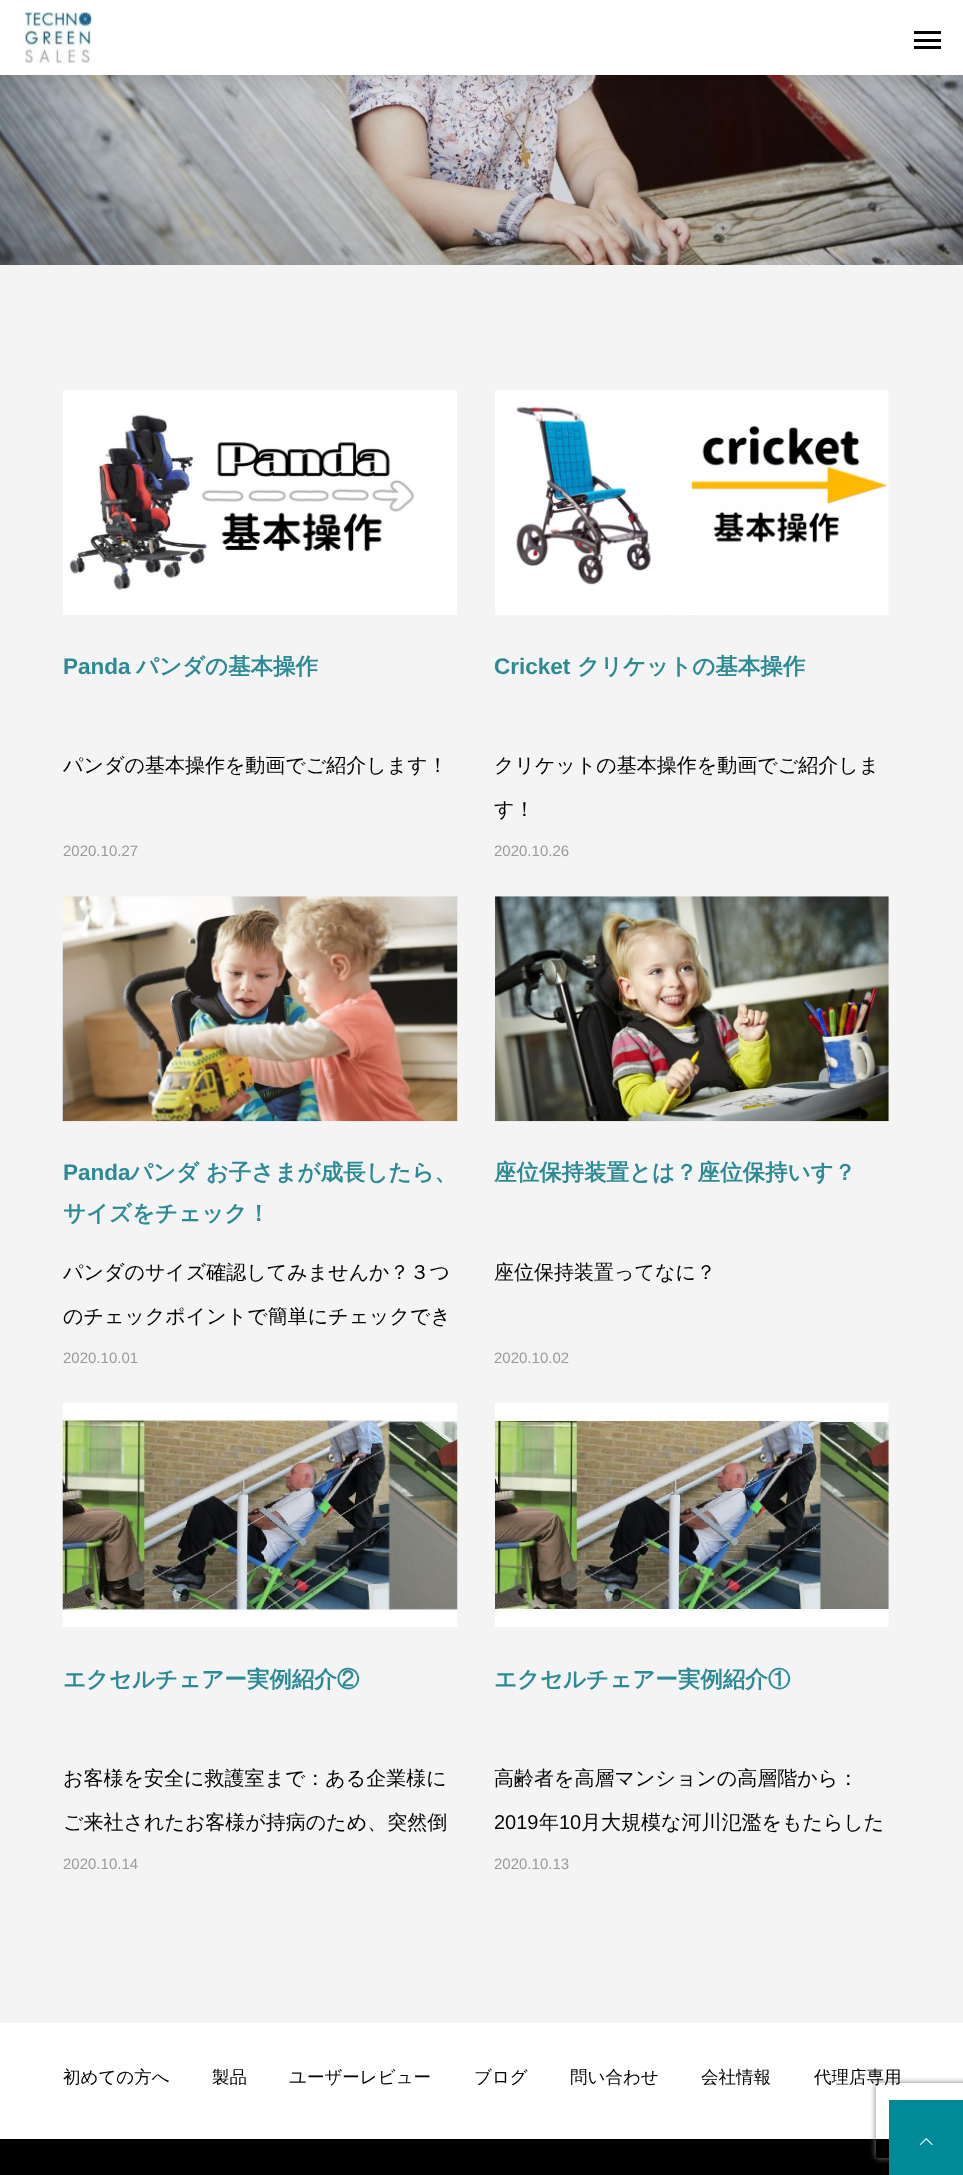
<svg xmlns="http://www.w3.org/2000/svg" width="963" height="2175">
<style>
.a{font:bold 22.5px Liberation Sans;fill:#2c8a95}
.b{font:bold 22.5px WenQuanYi Zen Hei;fill:#2c8a95}
.c{font:500 20px WenQuanYi Zen Hei;fill:#000}
.d{font:15px Liberation Sans;fill:#999}
.e{font:20px Liberation Sans;fill:#000}
.f{font:500 17.5px WenQuanYi Zen Hei;fill:#000}
</style>
<defs>
<clipPath id="clip1"><path d="M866 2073h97v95h-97zm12.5 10h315c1.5 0 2.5 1 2.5 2.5v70c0 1.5-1 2.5-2.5 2.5h-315c-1.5 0-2.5-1-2.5-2.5v-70c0-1.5 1-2.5 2.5-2.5z" clip-rule="evenodd"/></clipPath>
</defs>
<rect width="100%" height="100%" fill="#fff"/>
<image href="2.png" x="0" y="75" width="963" height="190"/>
<path fill="#0000001a" filter="blur(9.5px)" d="M-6 -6h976v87H-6z"/>
<path fill="#fff" d="M0 0h963v75H0z"/>
<image href="1.png" x="25" y="12" width="67" height="51"/>
<path fill="#000" d="M914 31h27v3H914z"/>
<path fill="#000" d="M914 39h27v3H914z"/>
<path fill="#000" d="M914 46h27v3H914z"/>
<path fill="#f4f4f4" d="M0 265h963v1758H0z"/>
<image href="3.png" x="63" y="390" width="394" height="225"/>
<image href="4.png" x="495" y="390" width="394" height="225"/>
<image href="5.png" x="62" y="896" width="396" height="226"/>
<image href="6.png" x="495" y="896" width="394" height="226"/>
<image href="7.png" x="62" y="1403" width="396" height="224"/>
<image href="8.png" x="495" y="1403" width="394" height="224"/>
<path fill="#000" d="M0 2139h889v36H0z"/>
<g clip-path="url(#clip1)">
<rect fill="#808080" filter="blur(3px)" x="876" y="2083" width="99" height="75" rx="2.5"/>
</g>
<path fill="#008a98" d="M889 2100h74v75H889z"/>
<image href="9.png" x="919" y="2138" width="14" height="7"/>
<text class="a" x="63" y="674">Panda</text>
<text class="b" x="136" y="674">パンダの基本操作</text>
<text class="c" x="63" y="772">パンダの基本操作を動画でご紹介します！</text>
<text class="d" x="63" y="856">2020.10.27</text>
<text class="a" x="494" y="674">Cricket</text>
<text class="b" x="577" y="674">クリケットの基本操作</text>
<text class="c" x="494" y="772">クリケットの基本操作を動画でご紹介しま</text>
<text class="c" x="494" y="816">す！</text>
<text class="d" x="494" y="856">2020.10.26</text>
<text class="a" x="63" y="1180">Panda</text>
<text class="b" x="130" y="1180">パンダ お子さまが成長したら、</text>
<text class="b" x="63" y="1221">サイズをチェック！</text>
<text class="c" x="63" y="1279">パンダのサイズ確認してみませんか？３つ</text>
<text class="c" x="63" y="1323">のチェックポイントで簡単にチェックでき</text>
<text class="d" x="63" y="1363">2020.10.01</text>
<text class="b" x="494" y="1180">座位保持装置とは？座位保持いす？</text>
<text class="c" x="494" y="1279">座位保持装置ってなに？</text>
<text class="d" x="494" y="1363">2020.10.02</text>
<text class="b" x="63" y="1687">エクセルチェアー実例紹介②</text>
<text class="c" x="63" y="1785">お客様を安全に救護室まで：ある企業様に</text>
<text class="c" x="63" y="1829">ご来社されたお客様が持病のため、突然倒</text>
<text class="d" x="63" y="1869">2020.10.14</text>
<text class="b" x="494" y="1687">エクセルチェアー実例紹介①</text>
<text class="c" x="494" y="1785">高齢者を高層マンションの高層階から：</text>
<text class="e" x="494" y="1829">2019</text>
<text class="c" x="539" y="1829">年</text>
<text class="e" x="559" y="1829">10</text>
<text class="c" x="581" y="1829">月大規模な河川氾濫をもたらした</text>
<text class="d" x="494" y="1869">2020.10.13</text>
<text class="f" x="63" y="2083">初めての方へ</text>
<text class="f" x="212" y="2083">製品</text>
<text class="f" x="289" y="2083">ユーザーレビュー</text>
<text class="f" x="474" y="2083">ブログ</text>
<text class="f" x="570" y="2083">問い合わせ</text>
<text class="f" x="701" y="2083">会社情報</text>
<text class="f" x="814" y="2083">代理店専用</text>
</svg>
